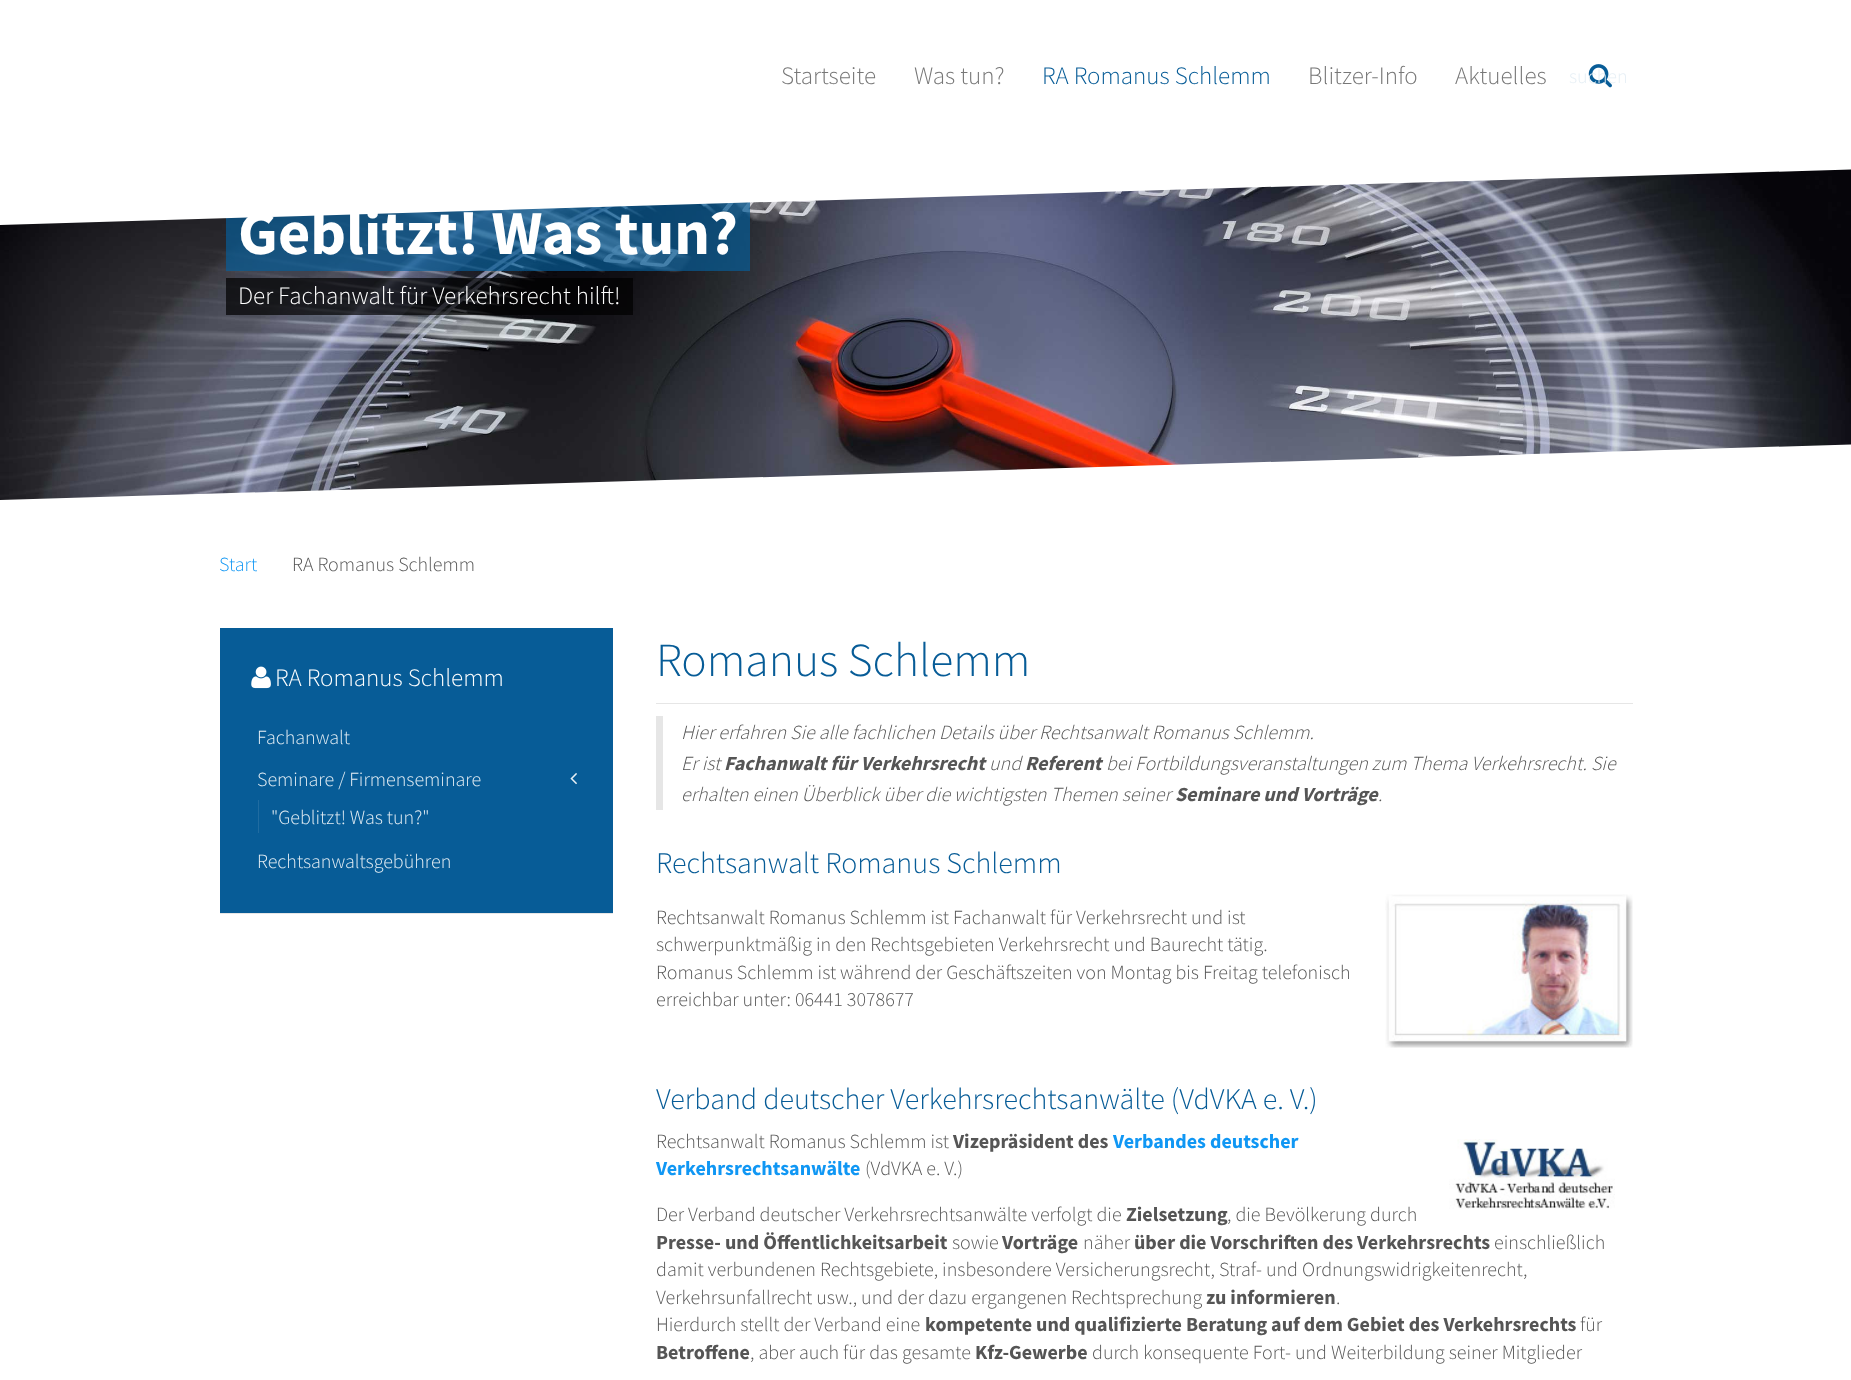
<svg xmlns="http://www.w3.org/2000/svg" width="1851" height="1380">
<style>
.a{font:300 25px Source Sans Pro;fill:#777}
.b{font:300 25px Source Sans Pro;fill:#075c97}
.c{font:300 20px Source Sans Pro;fill:#e6eff5}
.d{font:bold 62.5px Source Sans Pro;fill:#fff}
.e{font:300 25px Source Sans Pro;fill:#fff}
.f{font:300 20px Source Sans Pro;fill:#1097f4}
.g{font:300 20px Source Sans Pro;fill:#555}
.h{font:300 47.5px Source Sans Pro;fill:#075c97}
.i{font:italic 300 20px Source Sans Pro;fill:#555}
.j{font:italic bold 20px Source Sans Pro;fill:#555}
.k{font:300 30px Source Sans Pro;fill:#075c97}
.l{font:bold 20px Source Sans Pro;fill:#555}
.m{font:bold 20px Source Sans Pro;fill:#1097f4}
</style>
<rect width="100%" height="100%" fill="#fff"/>
<image href="1.png" x="1588" y="64" width="24" height="24"/>
<image href="2.png" x="0" y="169" width="1851" height="331"/>
<path fill="#075c97b3" d="M226 202h524v69H226z"/>
<path fill="#fff" d="M0 150h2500l-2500 75z"/>
<path fill="#000000b3" d="M226 278h407v37H226z"/>
<path fill="#fff" d="M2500 425v75h-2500z"/>
<path fill="#e6e6e6" d="M220 912v2h393v-285h-1v283z"/>
<path fill="#075c97" d="M220 628h393v285H220z"/>
<image href="3.png" x="251" y="666" width="20" height="23"/>
<image href="4.png" x="570" y="773" width="7" height="12"/>
<path fill="#206ca1" d="M258 800h1v33H258z"/>
<path fill="#e6e6e6" d="M656 703h977v1H656z"/>
<path fill="#e6e6e6" d="M656 716h7v94H656z"/>
<image href="5.png" x="1385" y="894" width="248" height="154"/>
<image href="6.png" x="1449" y="1139" width="166" height="70"/>
<text class="a" x="781" y="84">Startseite</text>
<text class="a" x="914" y="84">Was tun?</text>
<text class="b" x="1042" y="84">RA Romanus Schlemm</text>
<text class="a" x="1308" y="84">Blitzer-Info</text>
<text class="a" x="1455" y="84">Aktuelles</text>
<text class="c" x="1569" y="83">suchen</text>
<text class="d" x="238" y="254">Geblitzt! Was tun?</text>
<text class="e" x="238" y="304">Der Fachanwalt für Verkehrsrecht hilft!</text>
<text class="f" x="219" y="571">Start</text>
<text class="g" x="292" y="571">RA Romanus Schlemm</text>
<text class="e" x="275" y="686">RA Romanus Schlemm</text>
<text class="c" x="257" y="744">Fachanwalt</text>
<text class="c" x="257" y="786">Seminare / Firmenseminare</text>
<text class="c" x="271" y="824">"Geblitzt! Was tun?"</text>
<text class="c" x="257" y="868">Rechtsanwaltsgebühren</text>
<text class="h" x="656" y="676">Romanus Schlemm</text>
<text class="i" x="681" y="739">Hier erfahren Sie alle fachlichen Details über Rechtsanwalt Romanus Schlemm.</text>
<text class="i" x="681" y="770">Er ist</text>
<text class="j" x="724" y="770">Fachanwalt für Verkehrsrecht</text>
<text class="i" x="989" y="770">und</text>
<text class="j" x="1025" y="770">Referent</text>
<text class="i" x="1106" y="770">bei Fortbildungsveranstaltungen zum Thema Verkehrsrecht. Sie</text>
<text class="i" x="681" y="801">erhalten einen Überblick über die wichtigsten Themen seiner</text>
<text class="j" x="1175" y="801">Seminare und Vorträge</text>
<text class="i" x="1378" y="801">.</text>
<text class="k" x="656" y="873">Rechtsanwalt Romanus Schlemm</text>
<text class="g" x="656" y="924">Rechtsanwalt Romanus Schlemm ist Fachanwalt für Verkehrsrecht und ist</text>
<text class="g" x="656" y="951">schwerpunktmäßig in den Rechtsgebieten Verkehrsrecht und Baurecht tätig.</text>
<text class="g" x="656" y="979">Romanus Schlemm ist während der Geschäftszeiten von Montag bis Freitag telefonisch</text>
<text class="g" x="656" y="1006">erreichbar unter: 06441 3078677</text>
<text class="k" x="656" y="1109">Verband deutscher Verkehrsrechtsanwälte (VdVKA e. V.)</text>
<text class="g" x="656" y="1148">Rechtsanwalt Romanus Schlemm ist</text>
<text class="l" x="953" y="1148">Vizepräsident des</text>
<text class="m" x="1113" y="1148">Verbandes deutscher</text>
<text class="m" x="656" y="1175">Verkehrsrechtsanwälte</text>
<text class="g" x="865" y="1175">(VdVKA e. V.)</text>
<text class="g" x="656" y="1221">Der Verband deutscher Verkehrsrechtsanwälte verfolgt die</text>
<text class="l" x="1126" y="1221">Zielsetzung</text>
<text class="g" x="1227" y="1221">, die Bevölkerung durch</text>
<text class="l" x="656" y="1249">Presse- und Öffentlichkeitsarbeit</text>
<text class="g" x="952" y="1249">sowie</text>
<text class="l" x="1002" y="1249">Vorträge</text>
<text class="g" x="1083" y="1249">näher</text>
<text class="l" x="1134" y="1249">über die Vorschriften des Verkehrsrechts</text>
<text class="g" x="1494" y="1249">einschließlich</text>
<text class="g" x="656" y="1276">damit verbundenen Rechtsgebiete, insbesondere Versicherungsrecht, Straf- und Ordnungswidrigkeitenrecht,</text>
<text class="g" x="656" y="1304">Verkehrsunfallrecht usw., und der dazu ergangenen Rechtsprechung</text>
<text class="l" x="1206" y="1304">zu informieren</text>
<text class="g" x="1336" y="1304">.</text>
<text class="g" x="656" y="1331">Hierdurch stellt der Verband eine</text>
<text class="l" x="925" y="1331">kompetente und qualifizierte Beratung auf dem Gebiet des Verkehrsrechts</text>
<text class="g" x="1580" y="1331">für</text>
<text class="l" x="656" y="1359">Betroffene</text>
<text class="g" x="750" y="1359">, aber auch für das gesamte</text>
<text class="l" x="975" y="1359">Kfz-Gewerbe</text>
<text class="g" x="1092" y="1359">durch konsequente Fort- und Weiterbildung seiner Mitglieder</text>
</svg>
